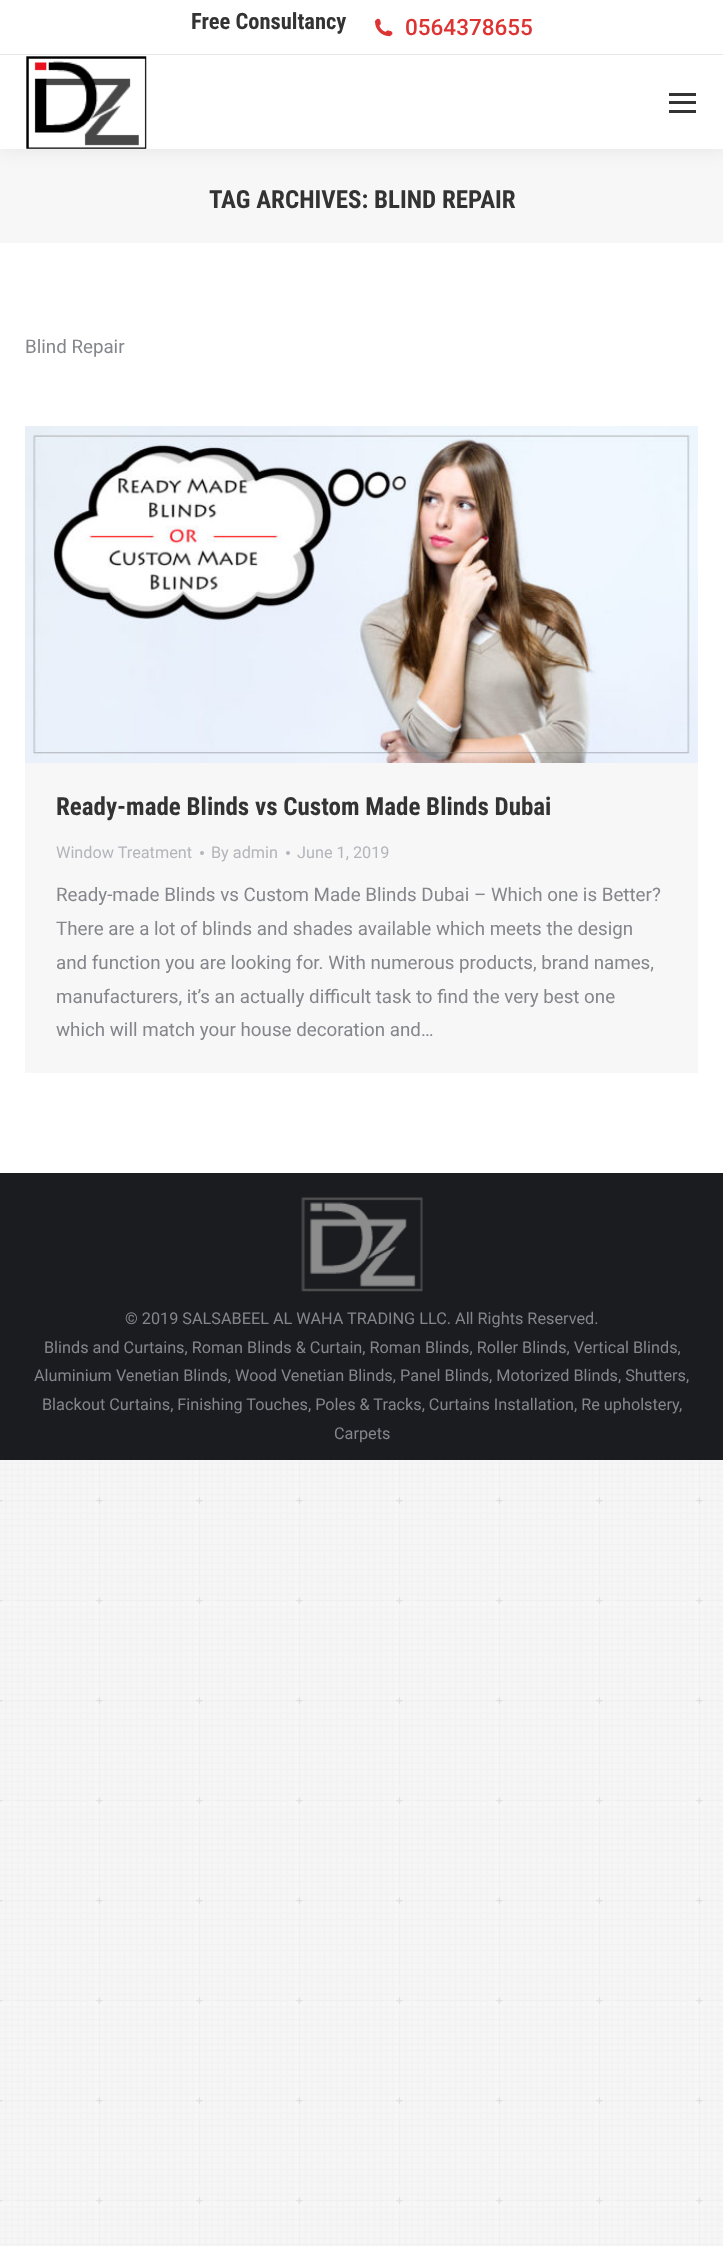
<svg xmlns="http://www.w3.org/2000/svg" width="723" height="2246">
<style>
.a{font:bold 22.5px Roboto Condensed;fill:#333}
.b{font:500 22.5px Roboto;fill:#d33}
.c{font:bold 25px Roboto Condensed;fill:#333}
.d{font:18.75px Roboto;fill:#85868c}
.e{font:16.25px Roboto;fill:#b4b5bb}
.f{font:16.25px Roboto;fill:#85868c}
</style>
<rect width="100%" height="100%" fill="#f7f7f7"/>
<image href="1.png" x="0" y="1460" width="723" height="786"/>
<path fill="#fff" d="M0 243h723v930H0z"/>
<path fill="#00000012" filter="blur(9.5px)" d="M-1 -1h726v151H-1z"/>
<path fill="#fff" d="M0 0h723v149H0z"/>
<image href="2.png" x="375" y="18" width="18" height="19"/>
<path fill="#e7e7e7" d="M0 54h723v1H0z"/>
<image href="3.png" x="26" y="56" width="121" height="93"/>
<path fill="#333" d="M669 93h27v3H669z"/>
<path fill="#333" d="M669 101h27v3H669z"/>
<path fill="#333" d="M669 110h27v3H669z"/>
<path fill="#f7f7f7" d="M25 763h673v310H25z"/>
<image href="4.png" x="25" y="426" width="673" height="337"/>
<circle fill="#b4b5bb" cx="202" cy="853" r="2"/>
<circle fill="#b4b5bb" cx="288" cy="853" r="2"/>
<path fill="#1a1c20" d="M0 1173h723v287H0z"/>
<image href="5.png" x="301" y="1197" width="122" height="95"/>
<text class="a" x="191" y="29">Free Consultancy</text>
<text class="b" x="405" y="35">0564378655</text>
<text class="c" x="209" y="208">TAG ARCHIVES: BLIND REPAIR</text>
<text class="d" x="25" y="353">Blind Repair</text>
<text class="c" x="56" y="815">Ready-made Blinds vs Custom Made Blinds Dubai</text>
<text class="e" x="56" y="858">Window Treatment</text>
<text class="e" x="211" y="858">By admin</text>
<text class="e" x="297" y="858">June 1, 2019</text>
<text class="d" x="56" y="901">Ready-made Blinds vs Custom Made Blinds Dubai – Which one is Better?</text>
<text class="d" x="56" y="935">There are a lot of blinds and shades available which meets the design</text>
<text class="d" x="56" y="969">and function you are looking for. With numerous products, brand names,</text>
<text class="d" x="56" y="1003">manufacturers, it’s an actually difficult task to find the very best one</text>
<text class="d" x="56" y="1036">which will match your house decoration and…</text>
<text class="f" x="125" y="1324">© 2019 SALSABEEL AL WAHA TRADING LLC. All Rights Reserved.</text>
<text class="f" x="44" y="1353">Blinds and Curtains, Roman Blinds &amp; Curtain, Roman Blinds, Roller Blinds, Vertical Blinds,</text>
<text class="f" x="34" y="1381">Aluminium Venetian Blinds, Wood Venetian Blinds, Panel Blinds, Motorized Blinds, Shutters,</text>
<text class="f" x="42" y="1410">Blackout Curtains, Finishing Touches, Poles &amp; Tracks, Curtains Installation, Re upholstery,</text>
<text class="f" x="334" y="1439">Carpets</text>
</svg>
